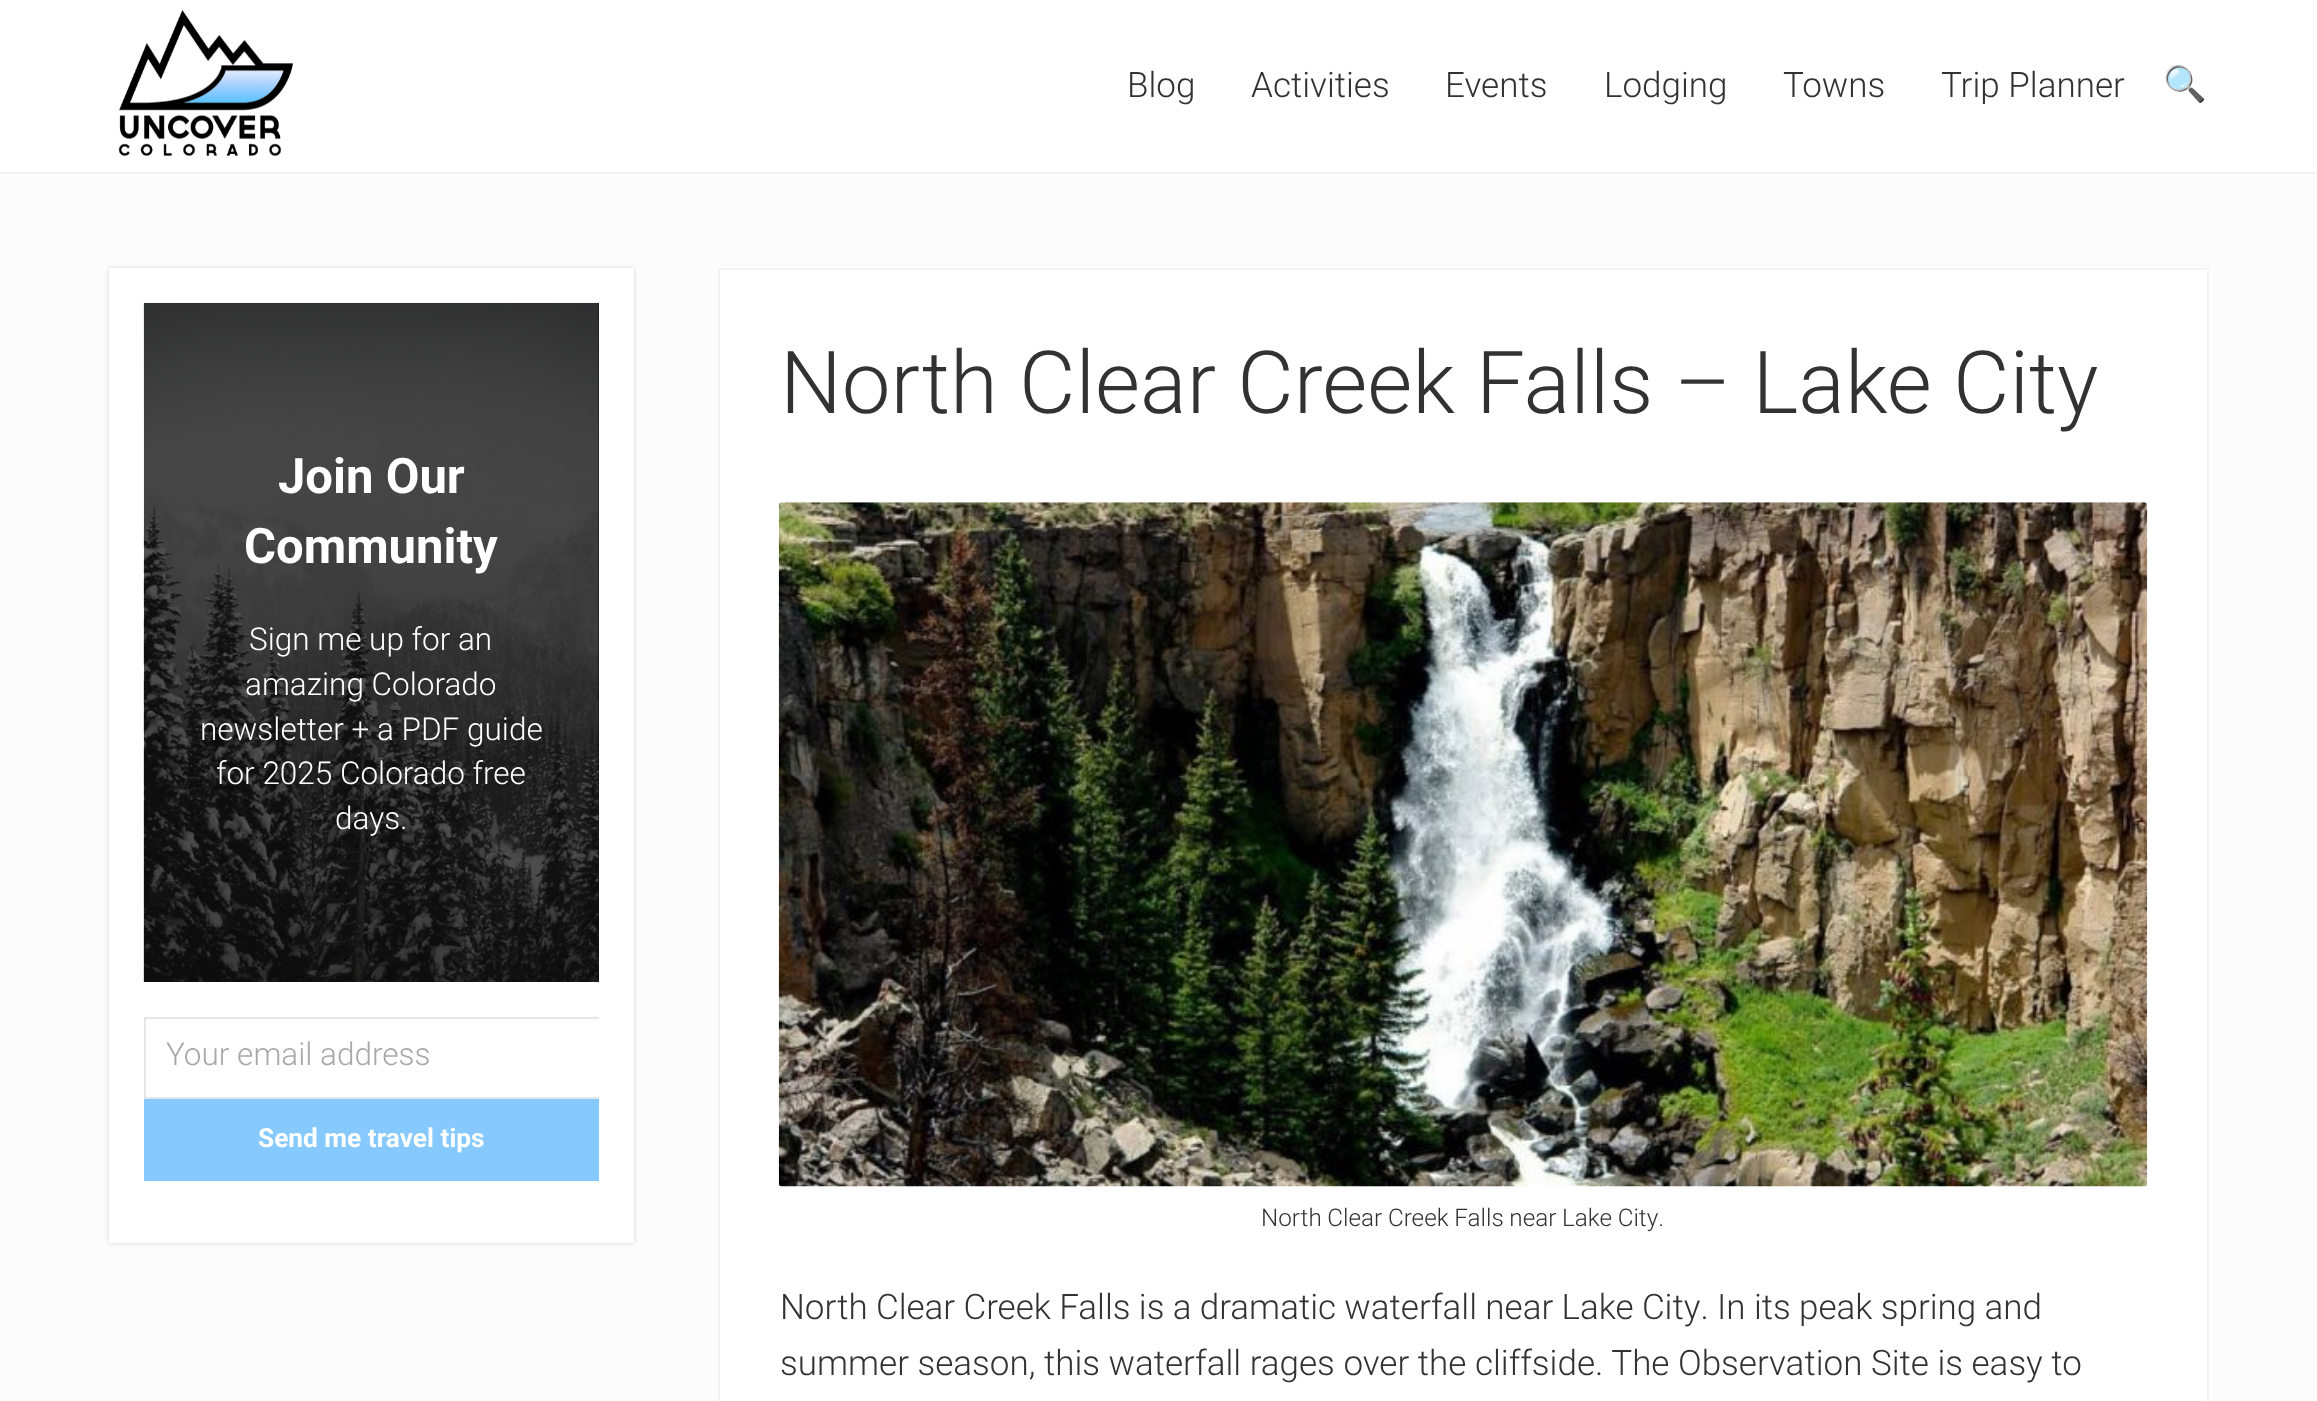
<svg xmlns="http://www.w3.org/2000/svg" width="2317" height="1401">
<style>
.a{font:300 35px Roboto;fill:#323232}
.b{font:35px Noto Color Emoji;fill:#323232}
.c{font:bold 49px Roboto;fill:#fff}
.d{font:300 31.5px Roboto;fill:#fff}
.e{font:300 31.5px Roboto;fill:#a8a8a8}
.f{font:bold 26.25px Roboto;fill:#fff}
.g{font:300 87px Roboto;fill:#323232}
.h{font:300 24.25px Roboto;fill:#323232}
</style>
<rect width="100%" height="100%" fill="#fcfcfc"/>
<path fill="#f0f0f1" d="M0 173h2317v1H0z"/>
<path fill="#fff" d="M0 0h2317v172H0z"/>
<path fill="#f3f3f4" d="M0 172h2317v1H0z"/>
<image href="1.png" x="118" y="10" width="176" height="146"/>
<path fill="#00000026" filter="blur(2px)" d="M109 268h525v975H109z"/>
<path fill="#fff" d="M109 268h525v975H109z"/>
<path fill="#101010" d="M144 303h455v679H144z"/>
<image href="2.png" x="143" y="302" width="456" height="680"/>
<path fill="#e4e7ea" d="M144 1017h455v2H144z"/>
<path fill="#e4e7ea" d="M144 1097h455v2H144z"/>
<path fill="#e4e7ea" d="M144 1017h2v82H144z"/>
<path fill="#85c9ff" d="M144 1099h455v82H144z"/>
<path fill="#fff" stroke="#f3f3f4" stroke-width="2" d="M719 269h1489v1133H719z"/>
<image href="3.png" x="778" y="502" width="1370" height="685"/>
<text class="a" x="1127" y="97">Blog</text>
<text class="a" x="1251" y="97">Activities</text>
<text class="a" x="1445" y="97">Events</text>
<text class="a" x="1604" y="97">Lodging</text>
<text class="a" x="1783" y="97">Towns</text>
<text class="a" x="1941" y="97">Trip Planner</text>
<text class="b" x="2163" y="96">🔍</text>
<text class="c" x="278" y="493">Join Our</text>
<text class="c" x="244" y="563">Community</text>
<text class="d" x="249" y="650">Sign me up for an</text>
<text class="d" x="245" y="695">amazing Colorado</text>
<text class="d" x="200" y="740">newsletter + a PDF guide</text>
<text class="d" x="216" y="784">for 2025 Colorado free</text>
<text class="d" x="335" y="829">days.</text>
<text class="e" x="166" y="1065">Your email address</text>
<text class="f" x="258" y="1147">Send me travel tips</text>
<text class="g" x="780" y="413">North Clear Creek Falls – Lake City</text>
<text class="h" x="1261" y="1226" word-spacing="-0.25">North Clear Creek Falls near Lake City.</text>
<text class="a" x="780" y="1319" word-spacing="-0.25">North Clear Creek Falls is a dramatic waterfall near Lake City. In its peak spring and</text>
<text class="a" x="780" y="1375">summer season, this waterfall rages over the cliffside. The Observation Site is easy to</text>
</svg>
